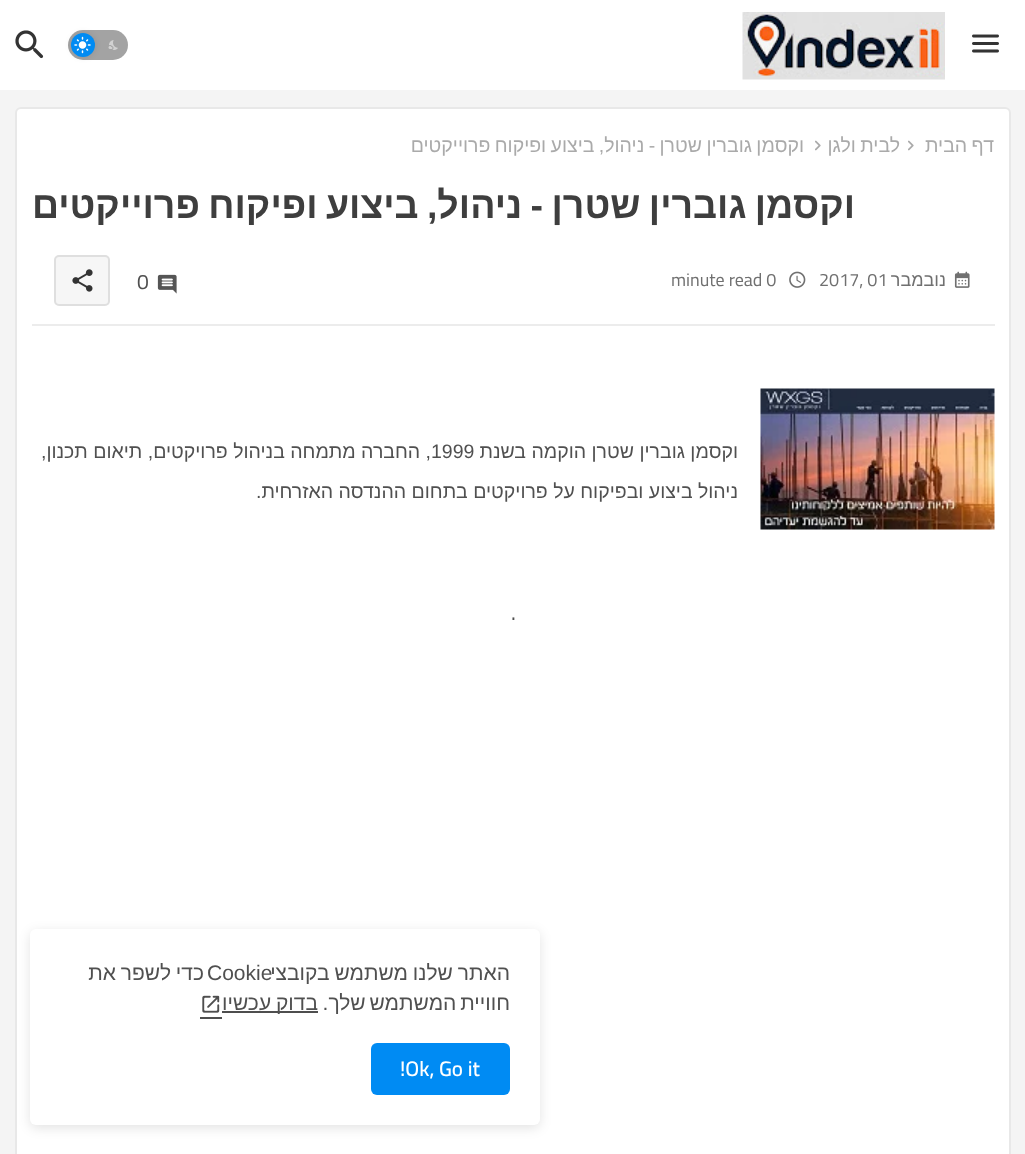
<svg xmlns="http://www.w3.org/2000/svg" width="1025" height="1154">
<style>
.a{font:19.5px Liberation Sans;direction:rtl;fill:#aaa}
.b{font:bold 37.5px Liberation Sans;direction:rtl;fill:#3e3e3e}
.c{font:18px Liberation Sans;direction:rtl;fill:#707070}
.d{font:18px Cairo;fill:#707070}
.e{font:21px Cairo;fill:#505050}
.f{font:19.5px Liberation Sans;direction:rtl;fill:#505050}
.g{font:19.5px Liberation Sans;fill:#505050}
.h{font:22px Cairo;fill:#505050}
.i{font:21px Liberation Sans;direction:rtl;fill:#505050}
.j{font:21px Liberation Sans;fill:#505050}
.k{font:600 21px Cairo;fill:#fff}
</style>
<rect width="100%" height="100%" fill="#f4f4f4"/>
<path fill="#fff" d="M0 0h1025v90H0z"/>
<image href="1.png" x="972" y="34" width="27" height="19"/>
<image href="2.png" x="742" y="12" width="203" height="68"/>
<rect fill="#a3a3a3" x="68" y="30" width="60" height="30" rx="15"/>
<image href="3.png" x="108" y="40" width="10" height="10"/>
<rect fill="#0000001a" filter="blur(3px)" x="71" y="33" width="24" height="24" rx="12"/>
<circle fill="#008bf3" cx="83" cy="45" r="12"/>
<image href="4.png" x="74" y="36" width="17" height="18"/>
<image href="5.png" x="15" y="30" width="29" height="29"/>
<rect fill="#fff" stroke="#e8e8e8" stroke-width="2" x="16" y="108" width="994" height="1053" rx="5"/>
<image href="6.png" x="908" y="140" width="6" height="11"/>
<image href="6.png" x="815" y="140" width="6" height="11"/>
<path fill="#ececec" d="M32 324h963v2H32z"/>
<image href="7.png" x="954" y="271" width="16" height="17"/>
<image href="8.png" x="789" y="271" width="17" height="17"/>
<image href="9.png" x="157" y="274" width="20" height="20"/>
<rect fill="#f6f6f6" x="54" y="255" width="56" height="51" rx="5"/>
<rect fill="none" stroke="#81818130" stroke-width="2" x="55" y="256" width="54" height="49" rx="4"/>
<image href="10.png" x="72" y="269" width="21" height="23"/>
<image href="11.png" x="760" y="388" width="235" height="142"/>
<rect fill="#0000001c" filter="blur(6px)" x="30" y="932" width="510" height="196" rx="6"/>
<rect fill="#fff" x="30" y="929" width="510" height="196" rx="6"/>
<path fill="#4e4e4e" d="M222 1011h96v2H222z"/>
<path fill="#4e4e4e" d="M200 1017h22v2H200z"/>
<image href="12.png" x="202" y="995" width="18" height="18"/>
<rect fill="#008bf3" x="371" y="1043" width="139" height="52" rx="6"/>
<text class="a" x="994" y="152" word-spacing="-1">דף הבית</text>
<text class="a" x="900" y="152" word-spacing="-1">לבית ולגן</text>
<text class="a" x="804" y="152" word-spacing="-1">וקסמן גוברין שטרן - ניהול, ביצוע ופיקוח פרוייקטים</text>
<text class="b" x="855" y="218" word-spacing="-2">וקסמן גוברין שטרן - ניהול, ביצוע ופיקוח פרוייקטים</text>
<text class="c" x="946" y="286">נובמבר</text>
<text class="d" x="819" y="286">2017, 01</text>
<text class="d" x="671" y="286">minute read 0</text>
<text class="e" x="137" y="289">0</text>
<text class="f" x="738" y="458">וקסמן גוברין שטרן הוקמה בשנת</text>
<text class="g" x="431" y="458">1999</text>
<text class="f" x="431" y="458">, החברה מתמחה בניהול פרויקטים, תיאום תכנון,</text>
<text class="f" x="738" y="498">ניהול ביצוע ובפיקוח על פרויקטים בתחום ההנדסה האזרחית.</text>
<text class="h" x="511" y="620">.</text>
<text class="i" x="510" y="980" word-spacing="-1">האתר שלנו משתמש בקובצי</text>
<text class="j" x="207" y="980">Cookie</text>
<text class="i" x="204" y="980" word-spacing="-1">כדי לשפר את</text>
<text class="i" x="510" y="1010" word-spacing="-2">חוויית המשתמש שלך.</text>
<text class="i" x="318" y="1010" word-spacing="-1">בדוק עכשיו</text>
<text class="k" x="400" y="1076">!Ok, Go it</text>
</svg>
